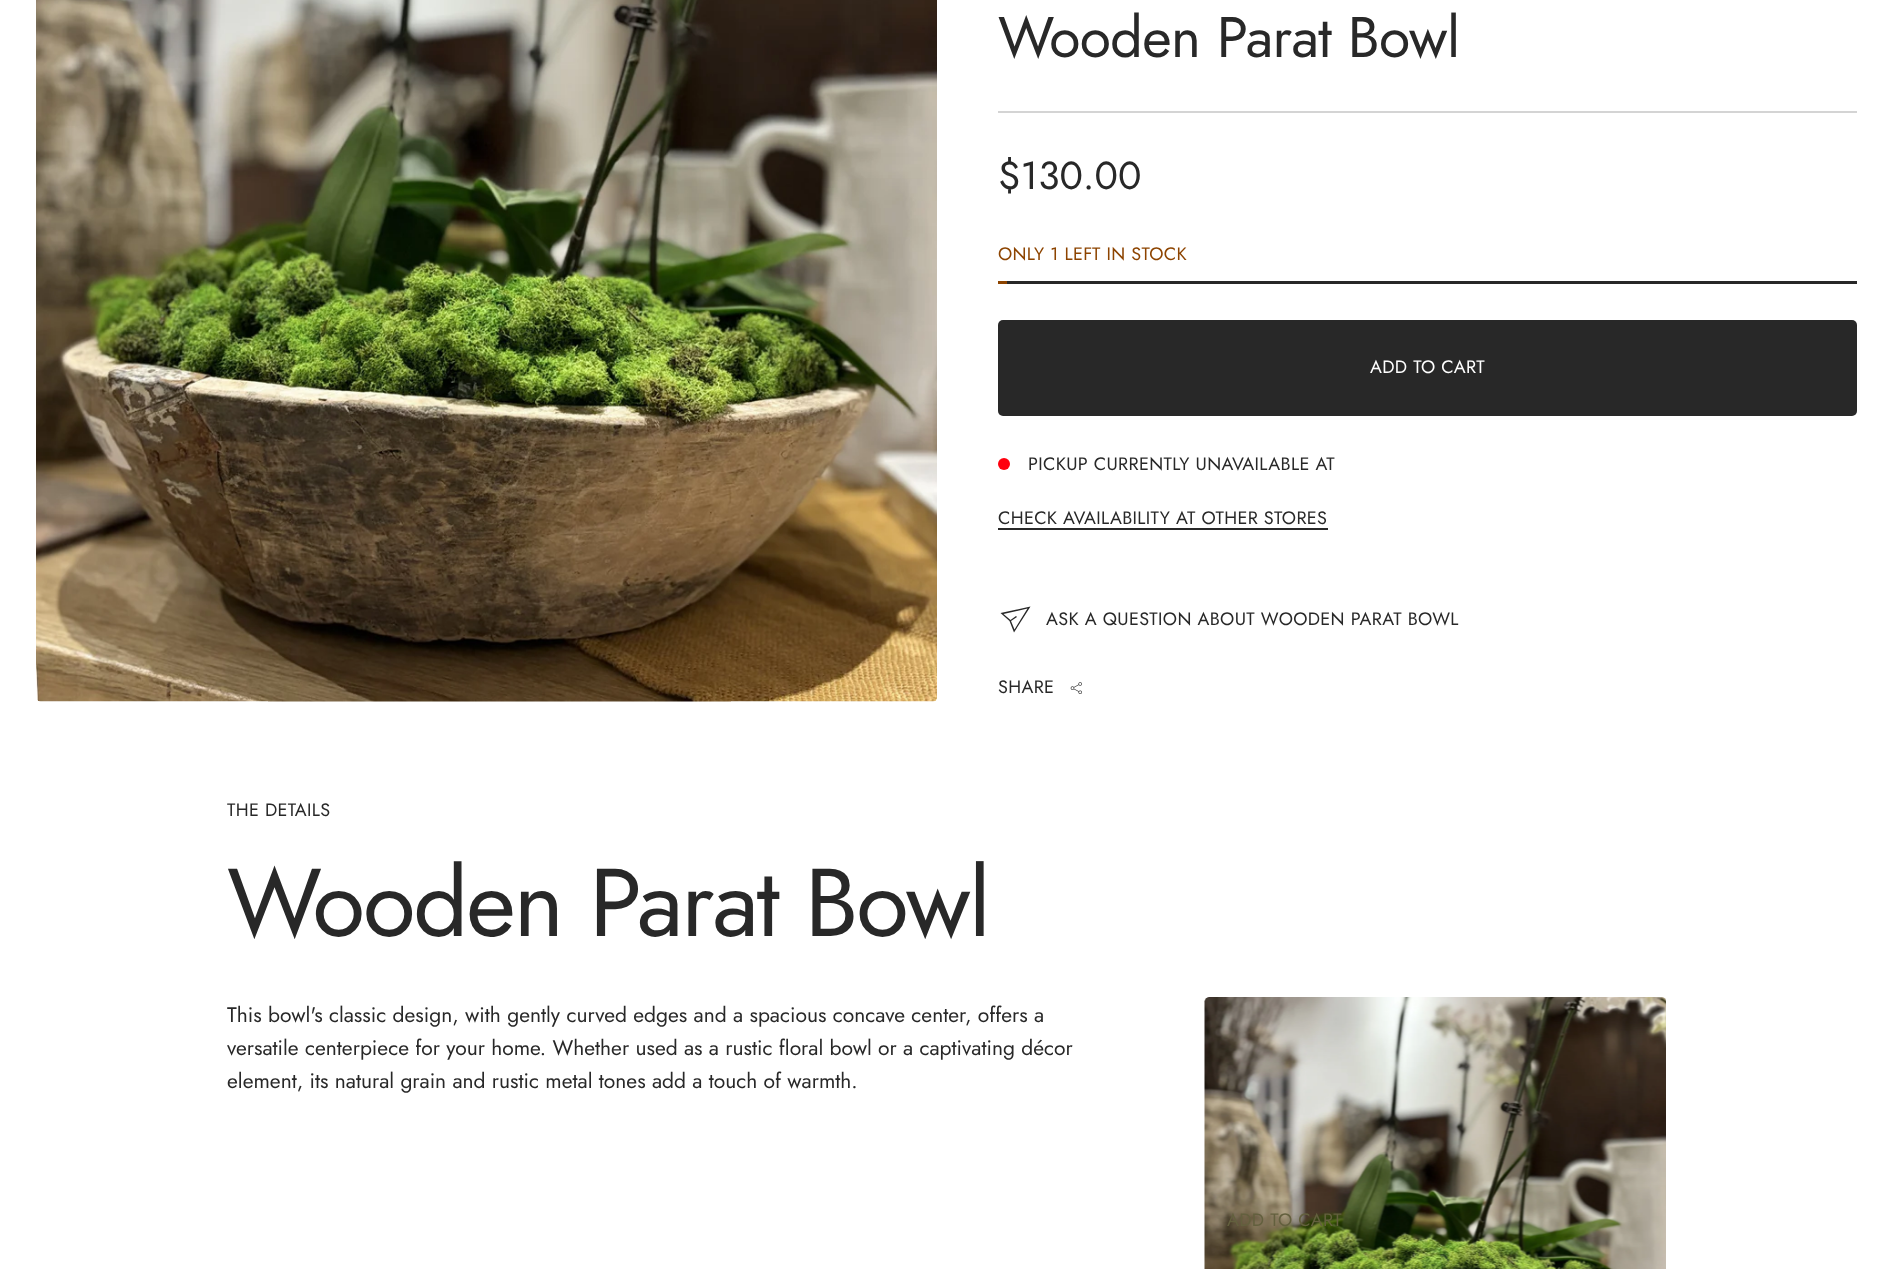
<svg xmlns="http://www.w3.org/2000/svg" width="1892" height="1269">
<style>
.a{font:18px Jost;letter-spacing:0.35px;fill:#282828}
.b{font:96px Jost;letter-spacing:-1.9px;fill:#282828}
.c{font:21px Jost;fill:#282828}
.d{font:57px Jost;letter-spacing:-0.6px;fill:#282828}
.e{font:39px Jost;fill:#282828}
.f{font:18px Jost;letter-spacing:0.35px;fill:#8d4400}
.g{font:18px Jost;letter-spacing:0.35px;fill:#fff}
.h{font:18px Jost;letter-spacing:0.35px;fill:#63603e}
</style>
<rect width="100%" height="100%" fill="#fff"/>
<image href="1.png" x="1204" y="997" width="462" height="272"/>
<image href="2.png" x="36" y="0" width="901" height="702"/>
<path fill="#d4d4d4" d="M998 111h859v2H998z"/>
<path fill="#282828" d="M1007 281h850v3H1007z"/>
<path fill="#8d4400" d="M998 281h9v3H998z"/>
<rect fill="#282828" x="998" y="320" width="859" height="96" rx="5"/>
<circle fill="#ff000e" cx="1004" cy="464" r="6"/>
<path fill="#282828" d="M998 528h330v2H998z"/>
<path fill="#282828" fill-rule="evenodd" d="M1030.5 606.5l-16.5 26l-4.5-11.5l-9-8zm-19.5 14.5l3.5 8.5l13-21l-24 5.5l7 6l5.5-4l1 1z"/>
<image href="3.png" x="1070" y="682" width="12" height="12"/>
<text class="a" x="227" y="816">THE DETAILS</text>
<text class="b" x="227" y="936">Wooden Parat Bowl</text>
<text class="c" x="227" y="1022">This bowl's classic design, with gently curved edges and a spacious concave center, offers a</text>
<text class="c" x="227" y="1055">versatile centerpiece for your home. Whether used as a rustic floral bowl or a captivating décor</text>
<text class="c" x="227" y="1088">element, its natural grain and rustic metal tones add a touch of warmth.</text>
<text class="d" x="998" y="57">Wooden Parat Bowl</text>
<text class="e" x="998" y="189">$130.00</text>
<text class="f" x="998" y="260">ONLY 1 LEFT IN STOCK</text>
<text class="g" x="1370" y="373">ADD TO CART</text>
<text class="a" x="1028" y="470">PICKUP CURRENTLY UNAVAILABLE AT</text>
<text class="a" x="998" y="524">CHECK AVAILABILITY AT OTHER STORES</text>
<text class="a" x="1046" y="625">ASK A QUESTION ABOUT WOODEN PARAT BOWL</text>
<text class="a" x="998" y="693">SHARE</text>
<text class="h" x="1227" y="1226">ADD TO CART</text>
</svg>
